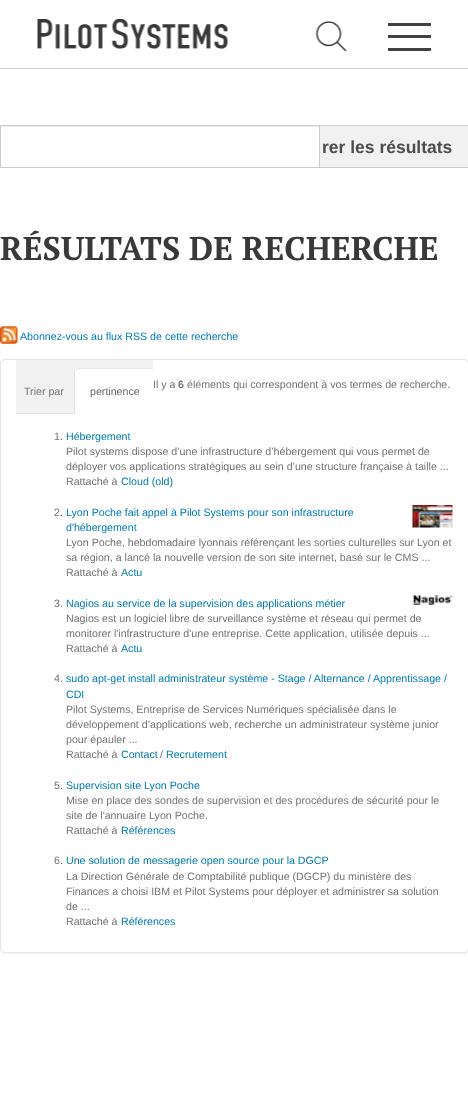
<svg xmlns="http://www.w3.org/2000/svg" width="468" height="1102">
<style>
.a{font:bold 17.5px Liberation Sans;fill:#4d4d4d}
.b{font:bold 32.75px PT Serif;fill:#3a3939}
.c{font:10.65px Liberation Sans;fill:#007bb1}
.d{font:10.65px Liberation Sans;fill:#747374}
.e{font:bold 10.65px Liberation Sans;fill:#747374}
.f{font:10.65px Liberation Sans;fill:#696969}
</style>
<defs>
<clipPath id="clip1"><path d="M16 360h137v54H16z"/></clipPath>
</defs>
<rect width="100%" height="100%" fill="#fff"/>
<path fill="#ccc" d="M0 68h468v1H0z"/>
<image href="1.png" x="37" y="19" width="191" height="30"/>
<image href="2.png" x="315" y="21" width="32" height="30"/>
<path fill="#424242" d="M388 23h43v3H388z"/>
<path fill="#424242" d="M388 35h43v3H388z"/>
<path fill="#424242" d="M388 48h43v3H388z"/>
<path fill="#f2f1f1" d="M320 126h148v41H320z"/>
<path fill="none" stroke="#ccc" d="M280.5 125.5h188v42H280.5z"/>
<path fill="#fff" d="M280 127h1v40H280z"/>
<path fill="#ececec" d="M1 126h318v1H1z"/>
<path fill="none" stroke="#ccc" d="M0.5 125.5h319v42H0.5z"/>
<image href="3.png" x="0" y="326" width="18" height="18"/>
<rect fill="#0000000d" filter="blur(2px)" y="360" width="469" height="594" rx="5"/>
<rect fill="#fff" stroke="#e5e5e5" x="0.5" y="359.5" width="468" height="593" rx="4.5"/>
<path fill="#f2f1f1" d="M16 360h137v53H16z"/>
<path fill="#e5e5e5" d="M16 413h58v1H16z"/>
<image href="4.png" x="412" y="505" width="41" height="23"/>
<image href="5.png" x="412" y="595" width="41" height="10"/>
<text class="a" x="322" y="153">rer les résultats</text>
<text class="b" x="0" y="260">RÉSULTATS DE RECHERCHE</text>
<text class="c" x="20" y="340">Abonnez-vous au flux RSS de cette recherche</text>
<text class="d" x="153" y="388">Il y a</text>
<text class="e" x="178" y="388">6</text>
<text class="d" x="187" y="388">éléments qui correspondent à vos termes de recherche.</text>
<text class="d" x="24" y="395">Trier par</text>
<g clip-path="url(#clip1)">
<path fill="#fff" d="M79 368h72c3 0 5 2 5 5v42h-82v-42c0-3 2-5 5-5z"/>
<path fill="#e5e5e5" d="M79 368l-4 1l1 1l3-1h72l3 1l1-1l-4-1z"/>
</g>
<path fill="#e5e5e5" d="M75 369l-1 2v44l1-1v-43l1-1z"/>
<text class="f" x="90" y="395">pertinence</text>
<text class="d" x="54" y="440">1.</text>
<text class="c" x="66" y="440">Hébergement</text>
<text class="d" x="66" y="455">Pilot systems dispose d’une infrastructure d’hébergement qui vous permet de</text>
<text class="d" x="66" y="470">déployer vos applications stratégiques au sein d’une structure française à taille ...</text>
<text class="d" x="66" y="485">Rattaché à</text>
<text class="c" x="121" y="485">Cloud (old)</text>
<text class="d" x="54" y="516">2.</text>
<text class="c" x="66" y="516">Lyon Poche fait appel à Pilot Systems pour son infrastructure</text>
<text class="c" x="66" y="531">d'hébergement</text>
<text class="d" x="66" y="546">Lyon Poche, hebdomadaire lyonnais référençant les sorties culturelles sur Lyon et</text>
<text class="d" x="66" y="561">sa région, a lancé la nouvelle version de son site internet, basé sur le CMS ...</text>
<text class="d" x="66" y="576">Rattaché à</text>
<text class="c" x="121" y="576">Actu</text>
<text class="d" x="54" y="607">3.</text>
<text class="c" x="66" y="607">Nagios au service de la supervision des applications métier</text>
<text class="d" x="66" y="622">Nagios est un logiciel libre de surveillance système et réseau qui permet de</text>
<text class="d" x="66" y="637">monitorer l'infrastructure d'une entreprise. Cette application, utilisée depuis ...</text>
<text class="d" x="66" y="652">Rattaché à</text>
<text class="c" x="121" y="652">Actu</text>
<text class="d" x="54" y="682">4.</text>
<text class="c" x="66" y="682">sudo apt-get install administrateur système - Stage / Alternance / Apprentissage /</text>
<text class="c" x="66" y="698">CDI</text>
<text class="d" x="66" y="713">Pilot Systems, Entreprise de Services Numériques spécialisée dans le</text>
<text class="d" x="66" y="728">développement d’applications web, recherche un administrateur système junior</text>
<text class="d" x="66" y="743">pour épauler ...</text>
<text class="d" x="66" y="758">Rattaché à</text>
<text class="c" x="121" y="758">Contact</text>
<text class="d" x="160" y="758">/</text>
<text class="c" x="166" y="758">Recrutement</text>
<text class="d" x="54" y="789">5.</text>
<text class="c" x="66" y="789">Supervision site Lyon Poche</text>
<text class="d" x="66" y="804">Mise en place des sondes de supervision et des procédures de sécurité pour le</text>
<text class="d" x="66" y="819">site de l'annuaire Lyon Poche.</text>
<text class="d" x="66" y="834">Rattaché à</text>
<text class="c" x="121" y="834">Références</text>
<text class="d" x="54" y="864">6.</text>
<text class="c" x="66" y="864">Une solution de messagerie open source pour la DGCP</text>
<text class="d" x="66" y="880">La Direction Générale de Comptabilité publique (DGCP) du ministère des</text>
<text class="d" x="66" y="895">Finances a choisi IBM et Pilot Systems pour déployer et administrer sa solution</text>
<text class="d" x="66" y="910">de ...</text>
<text class="d" x="66" y="925">Rattaché à</text>
<text class="c" x="121" y="925">Références</text>
</svg>
